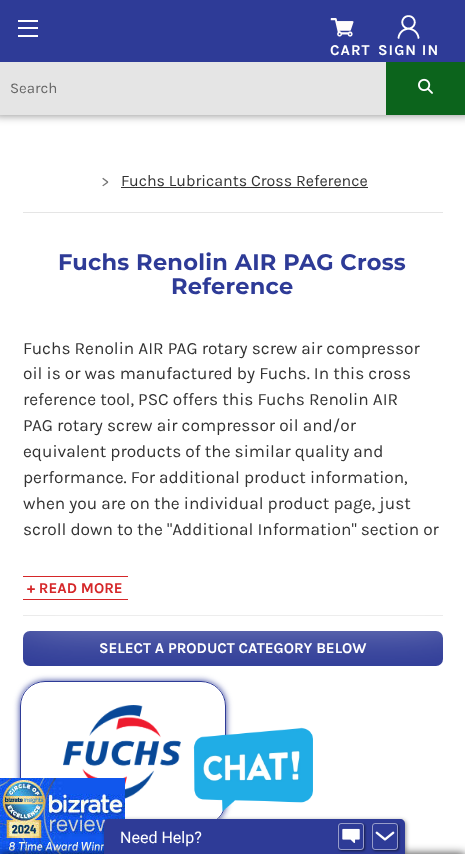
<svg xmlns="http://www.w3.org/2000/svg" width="465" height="854">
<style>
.a{font:bold 15px Karla;letter-spacing:1px;fill:#fff}
.b{font:15px Karla;fill:#666}
.c{font:16px Karla;fill:#757575}
.d{font:16px Karla;fill:#333}
.e{font:bold 22.5px Montserrat;letter-spacing:0.25px;fill:#2e3b97}
.f{font:17.25px Karla;fill:#333}
.g{font:bold 15px Karla;fill:#d52729}
.h{font:bold 15px Karla;fill:#fff}
.i{font:16px Roboto;fill:#fff}
</style>
<defs>
<clipPath id="clip1"><path d="M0 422h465v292h-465zm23 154h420v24h-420z" clip-rule="evenodd"/></clipPath>
<clipPath id="clip2"><path d="M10 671h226v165h-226zm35 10h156c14 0 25 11 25 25v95c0 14-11 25-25 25h-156c-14 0-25-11-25-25v-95c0-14 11-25 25-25z" clip-rule="evenodd"/></clipPath>
<clipPath id="clip3"><path d="M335 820h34v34h-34zm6 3h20c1.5 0 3 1.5 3 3v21c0 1.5-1.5 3-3 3h-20c-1.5 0-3-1.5-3-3v-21c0-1.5 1.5-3 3-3z" clip-rule="evenodd"/></clipPath>
<clipPath id="clip4"><path d="M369 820h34v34h-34zm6 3h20c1.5 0 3 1.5 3 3v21c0 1.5-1.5 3-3 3h-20c-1.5 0-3-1.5-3-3v-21c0-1.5 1.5-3 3-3z" clip-rule="evenodd"/></clipPath>
</defs>
<rect width="100%" height="100%" fill="#fff"/>
<path fill="#00000066" filter="blur(4px)" d="M-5 51h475v65H-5z"/>
<path fill="#2e3b97" d="M0 0h465v62H0z"/>
<path fill="#fff" d="M18 27h20v2H18z"/>
<path fill="#fff" d="M18 20h20v2H18z"/>
<path fill="#fff" d="M18 35h20v2H18z"/>
<image href="1.png" x="330" y="18" width="24" height="19"/>
<image href="2.png" x="397" y="15" width="23" height="24"/>
<path fill="#e5e5e5" d="M0 62h386v53H0z"/>
<path fill="#0c641c" d="M386 62h79v53H386z"/>
<image href="3.png" x="418" y="78" width="15" height="16"/>
<path fill="#333" d="M121 187h247v1H121z"/>
<path fill="#e5e5e5" d="M23 212h420v1H23z"/>
<path fill="#e5e5e5" d="M23 615h420v1H23z"/>
<rect fill="#2e3b97" x="23" y="631" width="420" height="35" rx="7"/>
<g clip-path="url(#clip1)">
<path fill="#fff" filter="blur(37.5px)" d="M10 536h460v64H10z"/>
</g>
<path fill="#d52729" d="M23 576h105v1H23z"/>
<path fill="#d52729" d="M23 599h105v1H23z"/>
<g clip-path="url(#clip2)">
<rect fill="#2e3b97" filter="blur(3px)" x="20" y="681" width="206" height="145" rx="25"/>
</g>
<rect fill="none" stroke="#2e3b97" x="20.5" y="681.5" width="205" height="144" rx="24.5"/>
<image href="4.png" x="63" y="705" width="118" height="94"/>
<image href="5.png" x="0" y="778" width="125" height="76"/>
<rect fill="#00000066" filter="blur(2px)" x="105" y="820" width="301" height="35" rx="5"/>
<image href="6.png" x="193" y="727" width="120" height="85"/>
<path fill="#000000cc" filter="blur(5px)" d="M0 854h465v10H0z"/>
<path fill="#2e3b97" d="M109 819h291c3 0 5 2 5 5v30h-301v-30c0-3 2-5 5-5z"/>
<g clip-path="url(#clip3)">
<rect fill="#00000080" filter="blur(1px)" x="339" y="824" width="26" height="27" rx="3"/>
</g>
<rect fill="none" stroke="#ffffff80" x="338.5" y="823.5" width="25" height="26" rx="2.5"/>
<image href="7.png" x="342" y="828" width="18" height="15"/>
<g clip-path="url(#clip4)">
<rect fill="#00000080" filter="blur(1px)" x="373" y="824" width="26" height="27" rx="3"/>
</g>
<rect fill="none" stroke="#ffffff80" x="372.5" y="823.5" width="25" height="26" rx="2.5"/>
<image href="8.png" x="375" y="831" width="20" height="10"/>
<text class="a" x="330" y="55">CART</text>
<text class="a" x="378" y="55">SIGN IN</text>
<text class="b" x="10" y="93">Search</text>
<text class="c" x="101" y="187">&gt;</text>
<text class="d" x="121" y="186">Fuchs Lubricants Cross Reference</text>
<text class="e" x="58" y="270">Fuchs Renolin AIR PAG Cross</text>
<text class="e" x="171" y="294">Reference</text>
<text class="f" x="23" y="354">Fuchs Renolin AIR PAG rotary screw air compressor</text>
<text class="f" x="23" y="379">oil is or was manufactured by Fuchs. In this cross</text>
<text class="f" x="23" y="405">reference tool, PSC offers this Fuchs Renolin AIR</text>
<text class="f" x="23" y="431">PAG rotary screw air compressor oil and/or</text>
<text class="f" x="23" y="457">equivalent products of the similar quality and</text>
<text class="f" x="23" y="483">performance. For additional product information,</text>
<text class="f" x="23" y="509">when you are on the individual product page, just</text>
<text class="f" x="23" y="535">scroll down to the "Additional Information" section or</text>
<text class="g" x="27" y="593">+ READ MORE</text>
<text class="h" x="99" y="653">SELECT A PRODUCT CATEGORY BELOW</text>
<text class="i" x="120" y="843">Need Help?</text>
</svg>
